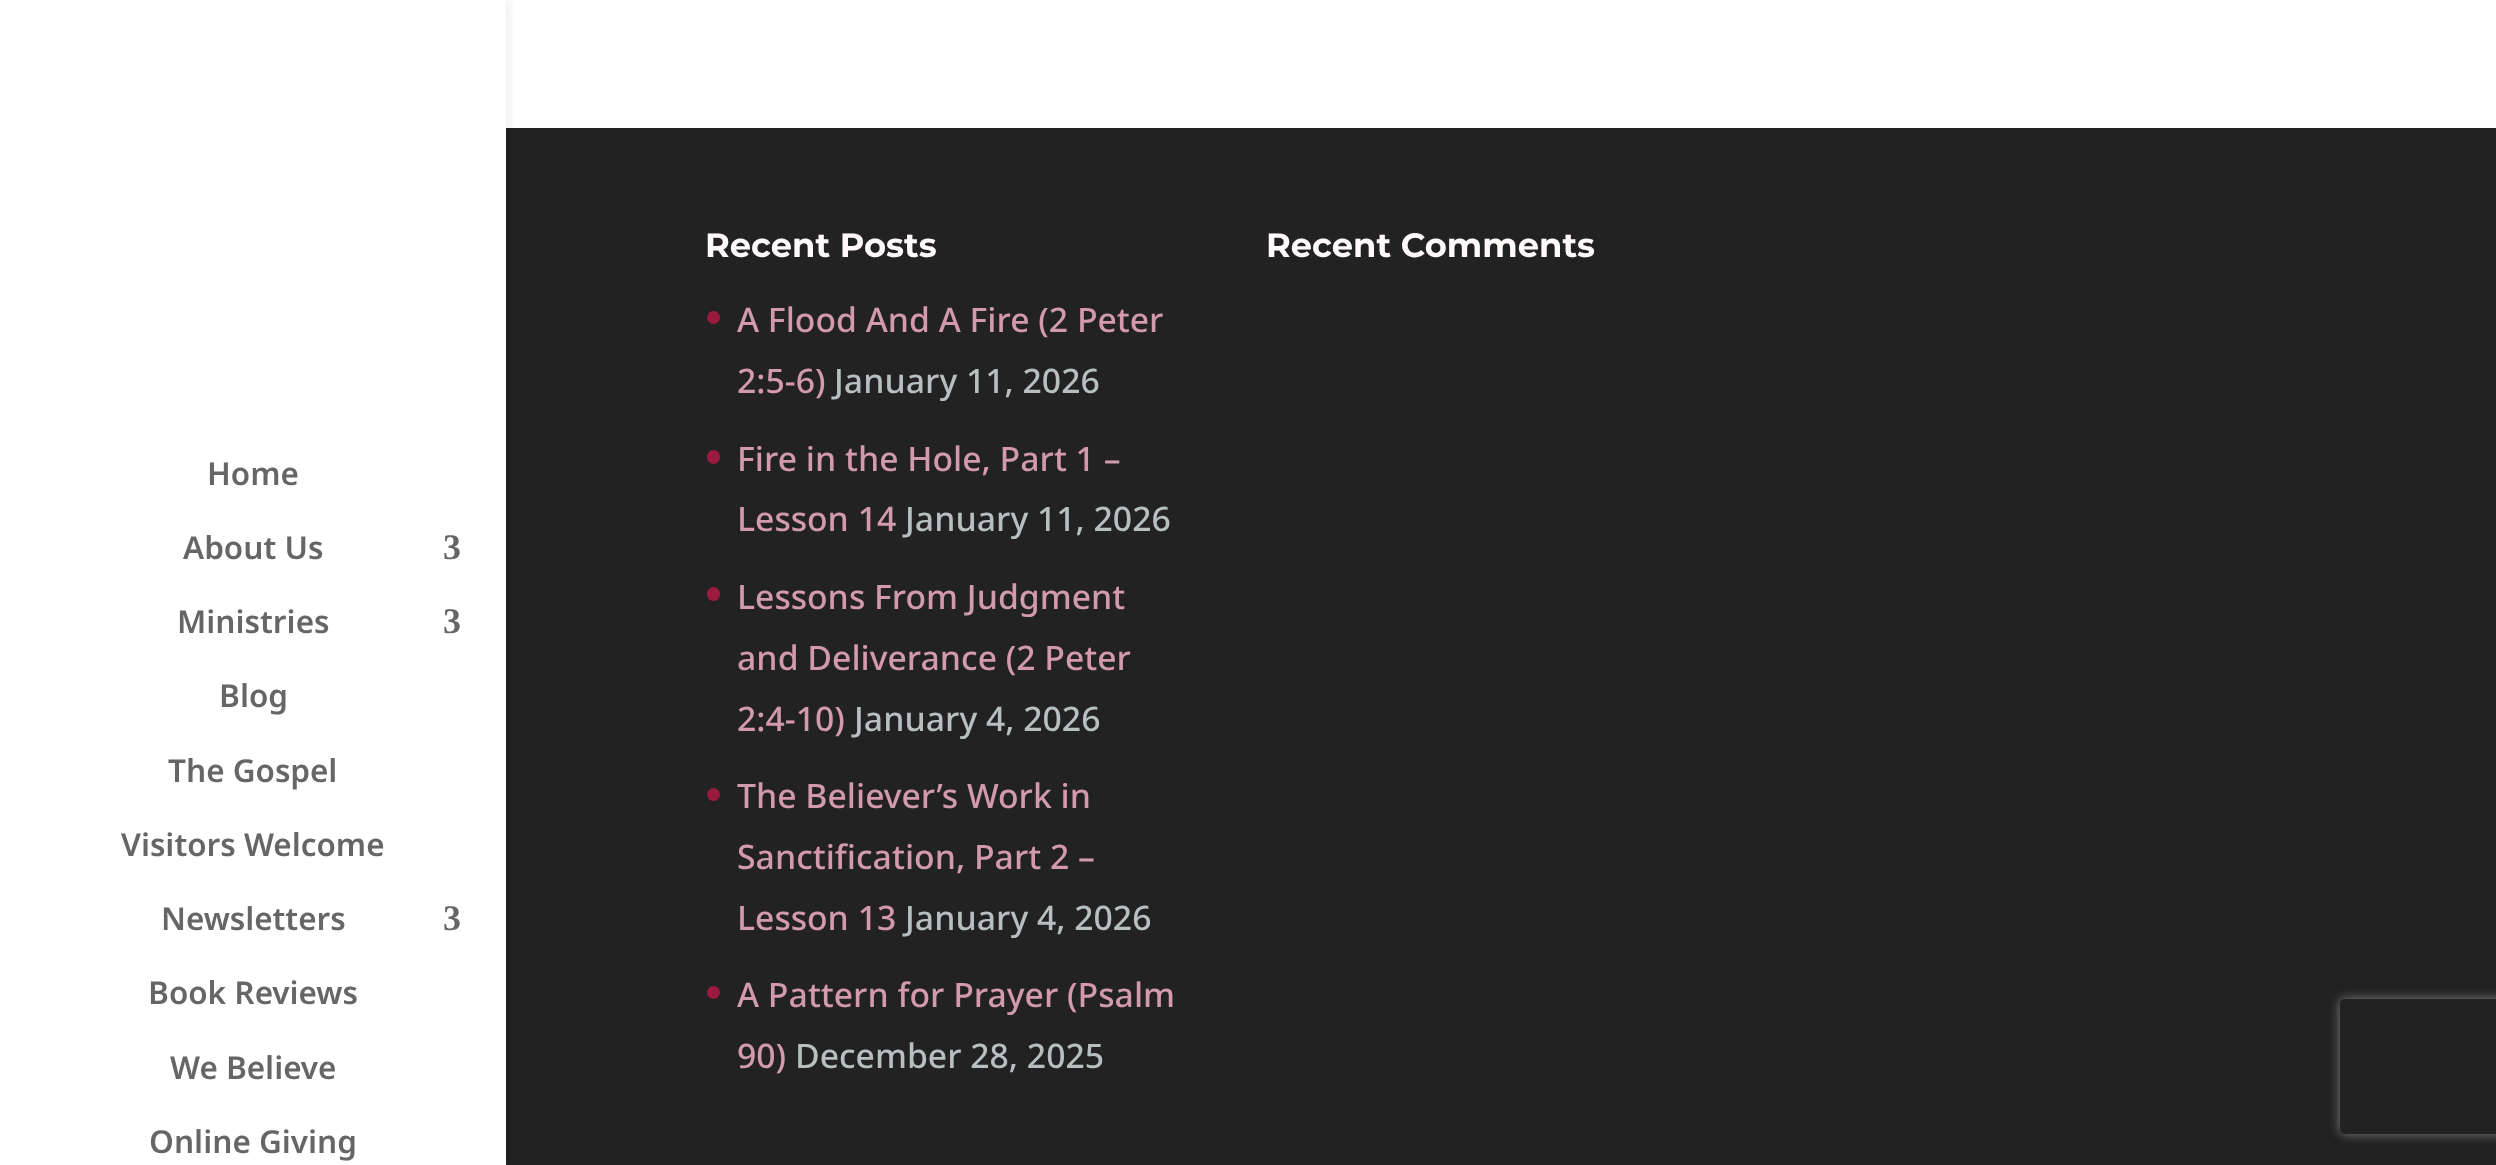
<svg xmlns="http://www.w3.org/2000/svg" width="2496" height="1165">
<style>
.a{font:600 31.5px Noto Sans;fill:#666}
.b{font:bold 36px Liberation Serif;fill:#666}
.c{font:bold 33.75px Montserrat;fill:#fff9f9}
.d{font:500 33.75px Noto Sans;fill:#d29aaa}
.e{font:500 33.75px Noto Sans;fill:#b8bfc1}
</style>
<defs>
<clipPath id="clip1"><path d="M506 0h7v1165H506z"/></clipPath>
<clipPath id="clip2"><path d="M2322 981h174v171h-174zm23 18h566c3 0 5 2 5 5v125c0 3-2 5-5 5h-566c-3 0-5-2-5-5v-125c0-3 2-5 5-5z" clip-rule="evenodd"/></clipPath>
</defs>
<rect width="100%" height="100%" fill="#fff"/>
<path fill="#222" d="M506 128h1990v1037H506z"/>
<g clip-path="url(#clip1)">
<path fill="#0000001a" filter="blur(8px)" d="M0 0h506v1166H0z"/>
</g>
<circle fill="#9b1b40" cx="713.5" cy="317.5" r="6.5"/>
<rect fill="#9b1b40" x="707" y="450" width="13" height="14" rx="6.5"/>
<rect fill="#9b1b40" x="707" y="587" width="13" height="14" rx="6.5"/>
<circle fill="#9b1b40" cx="713.5" cy="794.5" r="6.5"/>
<circle fill="#9b1b40" cx="713.5" cy="992.5" r="6.5"/>
<g clip-path="url(#clip2)">
<rect fill="#808080" filter="blur(5.5px)" x="2340" y="999" width="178" height="135" rx="5"/>
</g>
<text class="a" x="207" y="485">Home</text>
<text class="a" x="183" y="559">About Us</text>
<text class="b" x="443" y="559">3</text>
<text class="a" x="177" y="633">Ministries</text>
<text class="b" x="443" y="633">3</text>
<text class="a" x="219" y="707">Blog</text>
<text class="a" x="168" y="782">The Gospel</text>
<text class="a" x="121" y="856">Visitors Welcome</text>
<text class="a" x="161" y="930">Newsletters</text>
<text class="b" x="443" y="930">3</text>
<text class="a" x="148" y="1004">Book Reviews</text>
<text class="a" x="170" y="1079">We Believe</text>
<text class="a" x="149" y="1153">Online Giving</text>
<text class="c" x="705" y="257">Recent Posts</text>
<text class="d" x="737" y="332">A Flood And A Fire (2 Peter</text>
<text class="d" x="737" y="393">2:5-6)</text>
<text class="e" x="834" y="393">January 11, 2026</text>
<text class="d" x="737" y="471">Fire in the Hole, Part 1 –</text>
<text class="d" x="737" y="531">Lesson 14</text>
<text class="e" x="905" y="531">January 11, 2026</text>
<text class="d" x="737" y="609">Lessons From Judgment</text>
<text class="d" x="737" y="670">and Deliverance (2 Peter</text>
<text class="d" x="737" y="731">2:4-10)</text>
<text class="e" x="854" y="731">January 4, 2026</text>
<text class="d" x="737" y="808">The Believer’s Work in</text>
<text class="d" x="737" y="869">Sanctification, Part 2 –</text>
<text class="d" x="737" y="930">Lesson 13</text>
<text class="e" x="905" y="930">January 4, 2026</text>
<text class="d" x="737" y="1007">A Pattern for Prayer (Psalm</text>
<text class="d" x="737" y="1068">90)</text>
<text class="e" x="795" y="1068">December 28, 2025</text>
<text class="c" x="1266" y="257">Recent Comments</text>
</svg>
